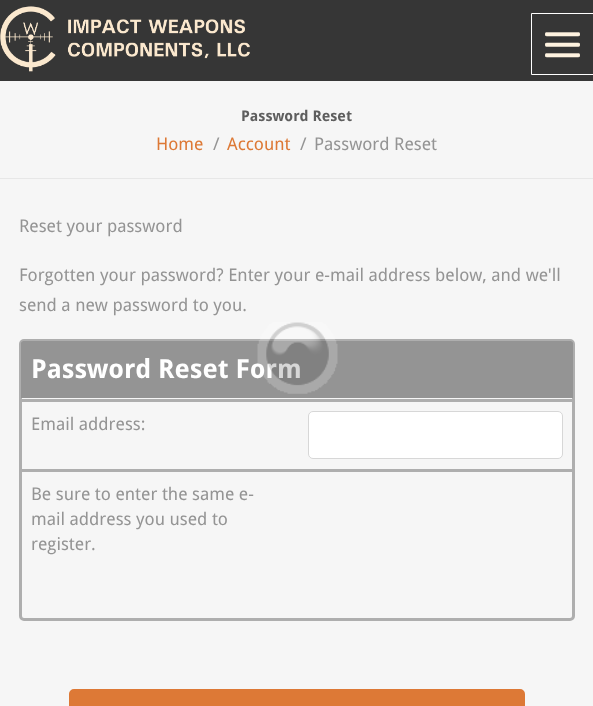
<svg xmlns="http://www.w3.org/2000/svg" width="593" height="706">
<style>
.a{font:bold 14.75px Droid Sans;fill:#5e5e5e}
.b{font:17.5px Droid Sans;fill:#dd7936}
.c{font:17.5px Droid Sans;fill:#949494}
.d{font:bold 26.25px Droid Sans;fill:#fff}
</style>
<rect width="100%" height="100%" fill="#f6f6f6"/>
<path fill="#363636" d="M0 0h593v81H0z"/>
<image href="1.png" x="0" y="6" width="250" height="66"/>
<path fill="none" stroke="#fff" d="M531.5 13.5h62v61H531.5z"/>
<image href="2.png" x="545" y="32" width="35" height="26"/>
<path fill="#e7e7e7" d="M0 178h593v1H0z"/>
<rect fill="none" stroke="#aeaeae" stroke-width="3" x="20.5" y="340.5" width="553" height="279" rx="3.5"/>
<path fill="#aeaeae" d="M21 399h552v3H21z"/>
<path fill="#949494" d="M23.5 341h547c1.5 0 2.5 1 2.5 2.5v54.5h-552v-54.5c0-1.5 1-2.5 2.5-2.5z"/>
<path fill="#aeaeae" d="M21 469h552v3H21z"/>
<rect fill="#fff" stroke="#d7d7d7" x="308.5" y="411.5" width="254" height="47" rx="4.5"/>
<rect fill="#dd7936" stroke="#dd7936" stroke-width="3" x="70.5" y="690.5" width="453" height="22" rx="3.5"/>
<text class="a" x="241" y="121">Password Reset</text>
<text class="b" x="156" y="150">Home</text>
<text class="c" x="213" y="150">/</text>
<text class="b" x="227" y="150">Account</text>
<text class="c" x="300" y="150">/</text>
<text class="c" x="314" y="150">Password Reset</text>
<text class="c" x="19" y="232">Reset your password</text>
<text class="c" x="19" y="281">Forgotten your password? Enter your e-mail address below, and we'll</text>
<text class="c" x="19" y="311">send a new password to you.</text>
<text class="d" x="31" y="378">Password Reset Form</text>
<text class="c" x="31" y="430">Email address:</text>
<text class="c" x="31" y="500">Be sure to enter the same e-</text>
<text class="c" x="31" y="525">mail address you used to</text>
<text class="c" x="31" y="550">register.</text>
<image href="3.png" x="257" y="322" width="81" height="72"/>
</svg>
